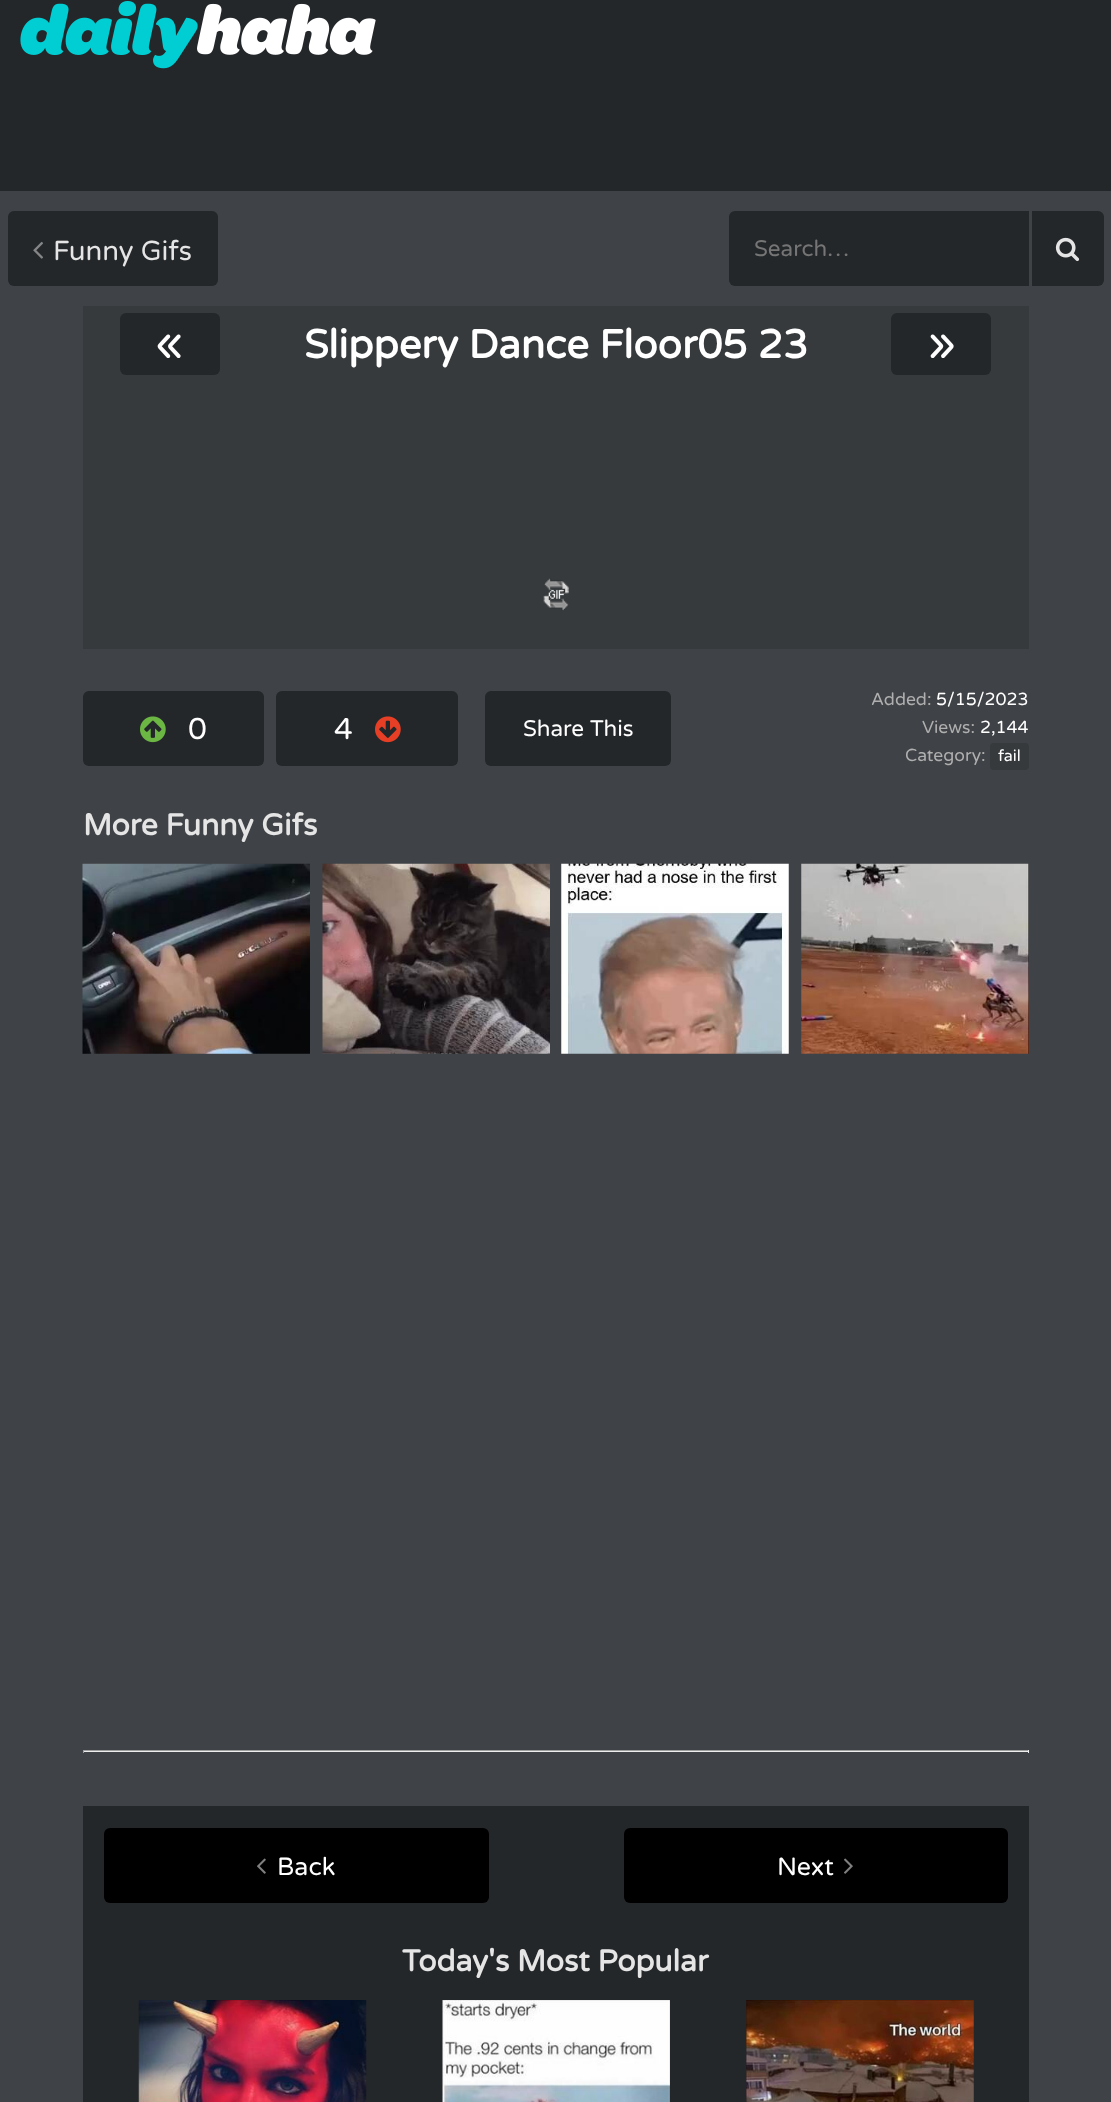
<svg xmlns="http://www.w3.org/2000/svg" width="1111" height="2102">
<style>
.a{font:27.5px Varela Round;fill:#e5e5e5}
.b{font:22.5px Varela Round;fill:#757575}
.c{font:50px Varela Round;fill:#fff}
.d{font:bold 40px Varela Round;fill:#fff}
.e{font:30px Varela Round;fill:#fff}
.f{font:22.5px Varela Round;fill:#fff}
.g{font:17.5px Varela Round;fill:#afafaf}
.h{font:17.5px Varela Round;fill:#fff}
.i{font:16px Varela Round;fill:#fff}
.j{font:bold 30px Varela Round;fill:#e5e5e5}
.k{font:25px Varela Round;fill:#fff}
</style>
<rect width="100%" height="100%" fill="#3f4246"/>
<path fill="#24272a" d="M0 0h1111v191H0z"/>
<image href="1.png" x="20" y="1" width="356" height="68"/>
<rect fill="#24272a" x="8" y="211" width="210" height="75" rx="6"/>
<image href="2.png" x="33" y="241" width="10" height="18"/>
<rect fill="#24272a" x="729" y="211" width="375" height="75" rx="6"/>
<path fill="#3f4246" d="M1029 211h3v75H1029z"/>
<image href="3.png" x="1055" y="237" width="25" height="25"/>
<path fill="#363a3d" d="M83 306h946v343H83z"/>
<rect fill="#24272a" x="120" y="313" width="100" height="62" rx="6"/>
<rect fill="#24272a" x="891" y="313" width="100" height="62" rx="6"/>
<image href="4.png" x="543" y="578" width="26" height="33"/>
<rect fill="#24272a" x="83" y="691" width="181" height="75" rx="6"/>
<image href="5.png" x="140" y="716" width="26" height="27"/>
<rect fill="#24272a" x="276" y="691" width="182" height="75" rx="6"/>
<image href="6.png" x="375" y="716" width="26" height="27"/>
<rect fill="#24272a" x="485" y="691" width="186" height="75" rx="6"/>
<rect fill="#363a3d" x="990" y="743" width="39" height="27" rx="4"/>
<image href="7.png" x="82" y="863" width="228" height="191"/>
<image href="8.png" x="322" y="863" width="228" height="191"/>
<image href="9.png" x="561" y="863" width="228" height="191"/>
<image href="10.png" x="801" y="863" width="228" height="191"/>
<path fill="#9f9f9f" d="M83 1750h946v1H83z"/>
<path fill="#eee" d="M1028 1750h1v3H1028z"/>
<path fill="#eee" d="M83 1751h946v1H83z"/>
<path fill="#9f9f9f" d="M83 1750h1v3H83z"/>
<path fill="#24272a" d="M83 1806h946v296H83z"/>
<rect fill="#000" x="104" y="1828" width="385" height="75" rx="6"/>
<image href="11.png" x="257" y="1858" width="9" height="16"/>
<rect fill="#000" x="624" y="1828" width="384" height="75" rx="6"/>
<image href="12.png" x="844" y="1858" width="9" height="16"/>
<image href="13.png" x="138" y="2000" width="229" height="102"/>
<image href="14.png" x="442" y="2000" width="228" height="102"/>
<image href="15.png" x="746" y="2000" width="228" height="102"/>
<text class="a" x="53" y="260">Funny Gifs</text>
<text class="b" x="754" y="256">Search…</text>
<text class="c" x="155" y="359">«</text>
<text class="d" x="304" y="358">Slippery Dance Floor05 23</text>
<text class="c" x="927" y="359">»</text>
<text class="e" x="188" y="739">0</text>
<text class="e" x="334" y="739">4</text>
<text class="f" x="523" y="736">Share This</text>
<text class="g" x="871" y="705">Added:</text>
<text class="h" x="936" y="705">5/15/2023</text>
<text class="g" x="922" y="733">Views:</text>
<text class="h" x="980" y="733">2,144</text>
<text class="g" x="905" y="761">Category:</text>
<text class="i" x="998" y="761">fail</text>
<text class="j" x="83" y="835">More Funny Gifs</text>
<text class="k" x="277" y="1875">Back</text>
<text class="k" x="777" y="1875">Next</text>
<text class="j" x="402" y="1971">Today's Most Popular</text>
</svg>
